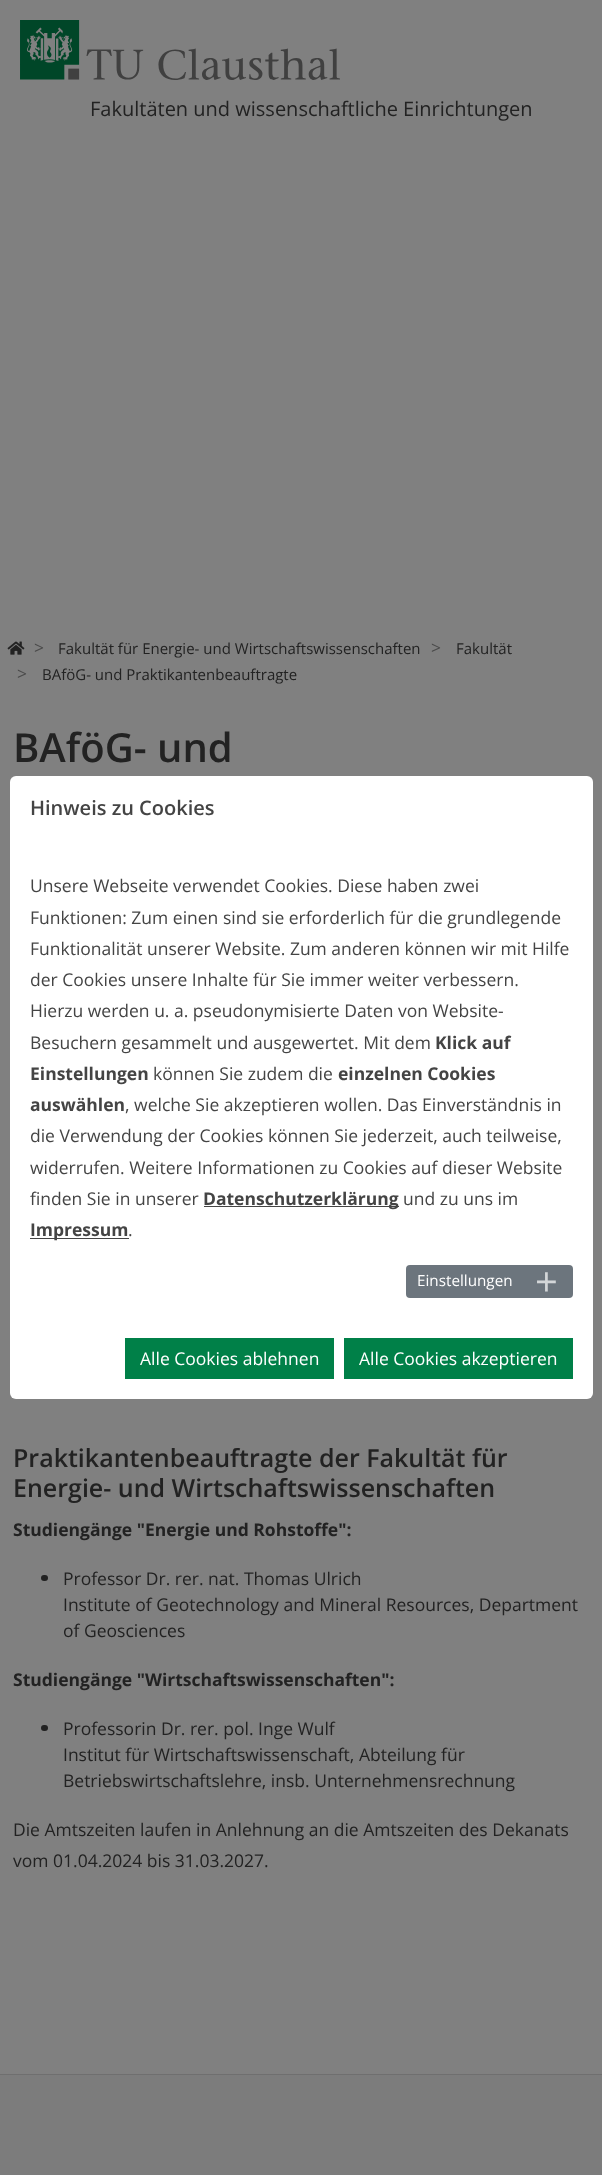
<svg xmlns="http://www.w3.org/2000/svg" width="602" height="2175">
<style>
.a{font:20px Open Sans;fill:#222}
.b{font:17.5px Open Sans;fill:#4a4a4a}
.c{font:15px Open Sans;fill:#222}
.d{font:600 40px Open Sans;fill:#222}
.e{font:600 25px Open Sans;fill:#222}
.f{font:bold 17.5px Open Sans;fill:#222}
.g{font:17.5px Open Sans;fill:#222}
.h{font:600 20px Open Sans;fill:#444}
.i{font:17.5px Open Sans;fill:#444}
.j{font:bold 17.5px Open Sans;fill:#444}
.k{font:15.25px Open Sans;fill:#fff}
.l{font:40px Open Sans;fill:#d3d6d8}
.m{font:17.5px Open Sans;fill:#fff}
</style>
<rect width="100%" height="100%" fill="#808080"/>
<image href="1.png" x="20" y="20" width="320" height="60"/>
<image href="2.png" x="7" y="641" width="18" height="14"/>
<rect fill="#222" x="41" y="1575" width="7" height="6" rx="3"/>
<rect fill="#222" x="41" y="1725" width="7" height="6" rx="3"/>
<path fill="#7c7c7c" d="M0 2075h602v100H0z"/>
<path fill="#6f6f6f" d="M0 2074h602v1H0z"/>
<rect fill="#fff" x="10" y="776" width="583" height="623" rx="6"/>
<path fill="#444" d="M204 1206h195v1H204z"/>
<path fill="#444" d="M30 1238h99v1H30z"/>
<rect fill="#6c757d" x="406" y="1265" width="167" height="33" rx="4"/>
<path fill="#008048" d="M125 1338h209v41H125z"/>
<path fill="#008048" d="M344 1338h229v41H344z"/>
<text class="a" x="90" y="116">Fakultäten und wissenschaftliche Einrichtungen</text>
<text class="b" x="34" y="654">&gt;</text>
<text class="c" x="58" y="654">Fakultät für Energie- und Wirtschaftswissenschaften</text>
<text class="b" x="431" y="654">&gt;</text>
<text class="c" x="456" y="654">Fakultät</text>
<text class="b" x="17" y="680">&gt;</text>
<text class="c" x="42" y="680">BAföG- und Praktikantenbeauftragte</text>
<text class="d" x="13" y="762">BAföG- und</text>
<text class="e" x="13" y="1467">Praktikantenbeauftragte der Fakultät für</text>
<text class="e" x="13" y="1497">Energie- und Wirtschaftswissenschaften</text>
<text class="f" x="13" y="1536">Studiengänge "Energie und Rohstoffe":</text>
<text class="g" x="63" y="1585">Professor Dr. rer. nat. Thomas Ulrich</text>
<text class="g" x="63" y="1611">Institute of Geotechnology and Mineral Resources, Department</text>
<text class="g" x="63" y="1637">of Geosciences</text>
<text class="f" x="13" y="1686">Studiengänge "Wirtschaftswissenschaften":</text>
<text class="g" x="63" y="1735">Professorin Dr. rer. pol. Inge Wulf</text>
<text class="g" x="63" y="1761">Institut für Wirtschaftswissenschaft, Abteilung für</text>
<text class="g" x="63" y="1787">Betriebswirtschaftslehre, insb. Unternehmensrechnung</text>
<text class="g" x="13" y="1836">Die Amtszeiten laufen in Anlehnung an die Amtszeiten des Dekanats</text>
<text class="g" x="13" y="1867">vom 01.04.2024 bis 31.03.2027.</text>
<text class="h" x="30" y="815">Hinweis zu Cookies</text>
<text class="i" x="30" y="892">Unsere Webseite verwendet Cookies. Diese haben zwei</text>
<text class="i" x="30" y="924">Funktionen: Zum einen sind sie erforderlich für die grundlegende</text>
<text class="i" x="30" y="955">Funktionalität unserer Website. Zum anderen können wir mit Hilfe</text>
<text class="i" x="30" y="986">der Cookies unsere Inhalte für Sie immer weiter verbessern.</text>
<text class="i" x="30" y="1017">Hierzu werden u. a. pseudonymisierte Daten von Website-</text>
<text class="i" x="30" y="1049">Besuchern gesammelt und ausgewertet. Mit dem</text>
<text class="j" x="435" y="1049">Klick auf</text>
<text class="j" x="30" y="1080">Einstellungen</text>
<text class="i" x="153" y="1080">können Sie zudem die</text>
<text class="j" x="338" y="1080">einzelnen Cookies</text>
<text class="j" x="30" y="1111">auswählen</text>
<text class="i" x="125" y="1111">, welche Sie akzeptieren wollen. Das Einverständnis in</text>
<text class="i" x="30" y="1142">die Verwendung der Cookies können Sie jederzeit, auch teilweise,</text>
<text class="i" x="30" y="1174">widerrufen. Weitere Informationen zu Cookies auf dieser Website</text>
<text class="i" x="30" y="1205">finden Sie in unserer</text>
<text class="j" x="203" y="1205">Datenschutzerklärung</text>
<text class="i" x="403" y="1205">und zu uns im</text>
<text class="j" x="30" y="1236">Impressum</text>
<text class="i" x="128" y="1236">.</text>
<text class="k" x="417" y="1286">Einstellungen</text>
<text class="l" x="535" y="1296">+</text>
<text class="m" x="140" y="1365">Alle Cookies ablehnen</text>
<text class="m" x="359" y="1365">Alle Cookies akzeptieren</text>
</svg>
